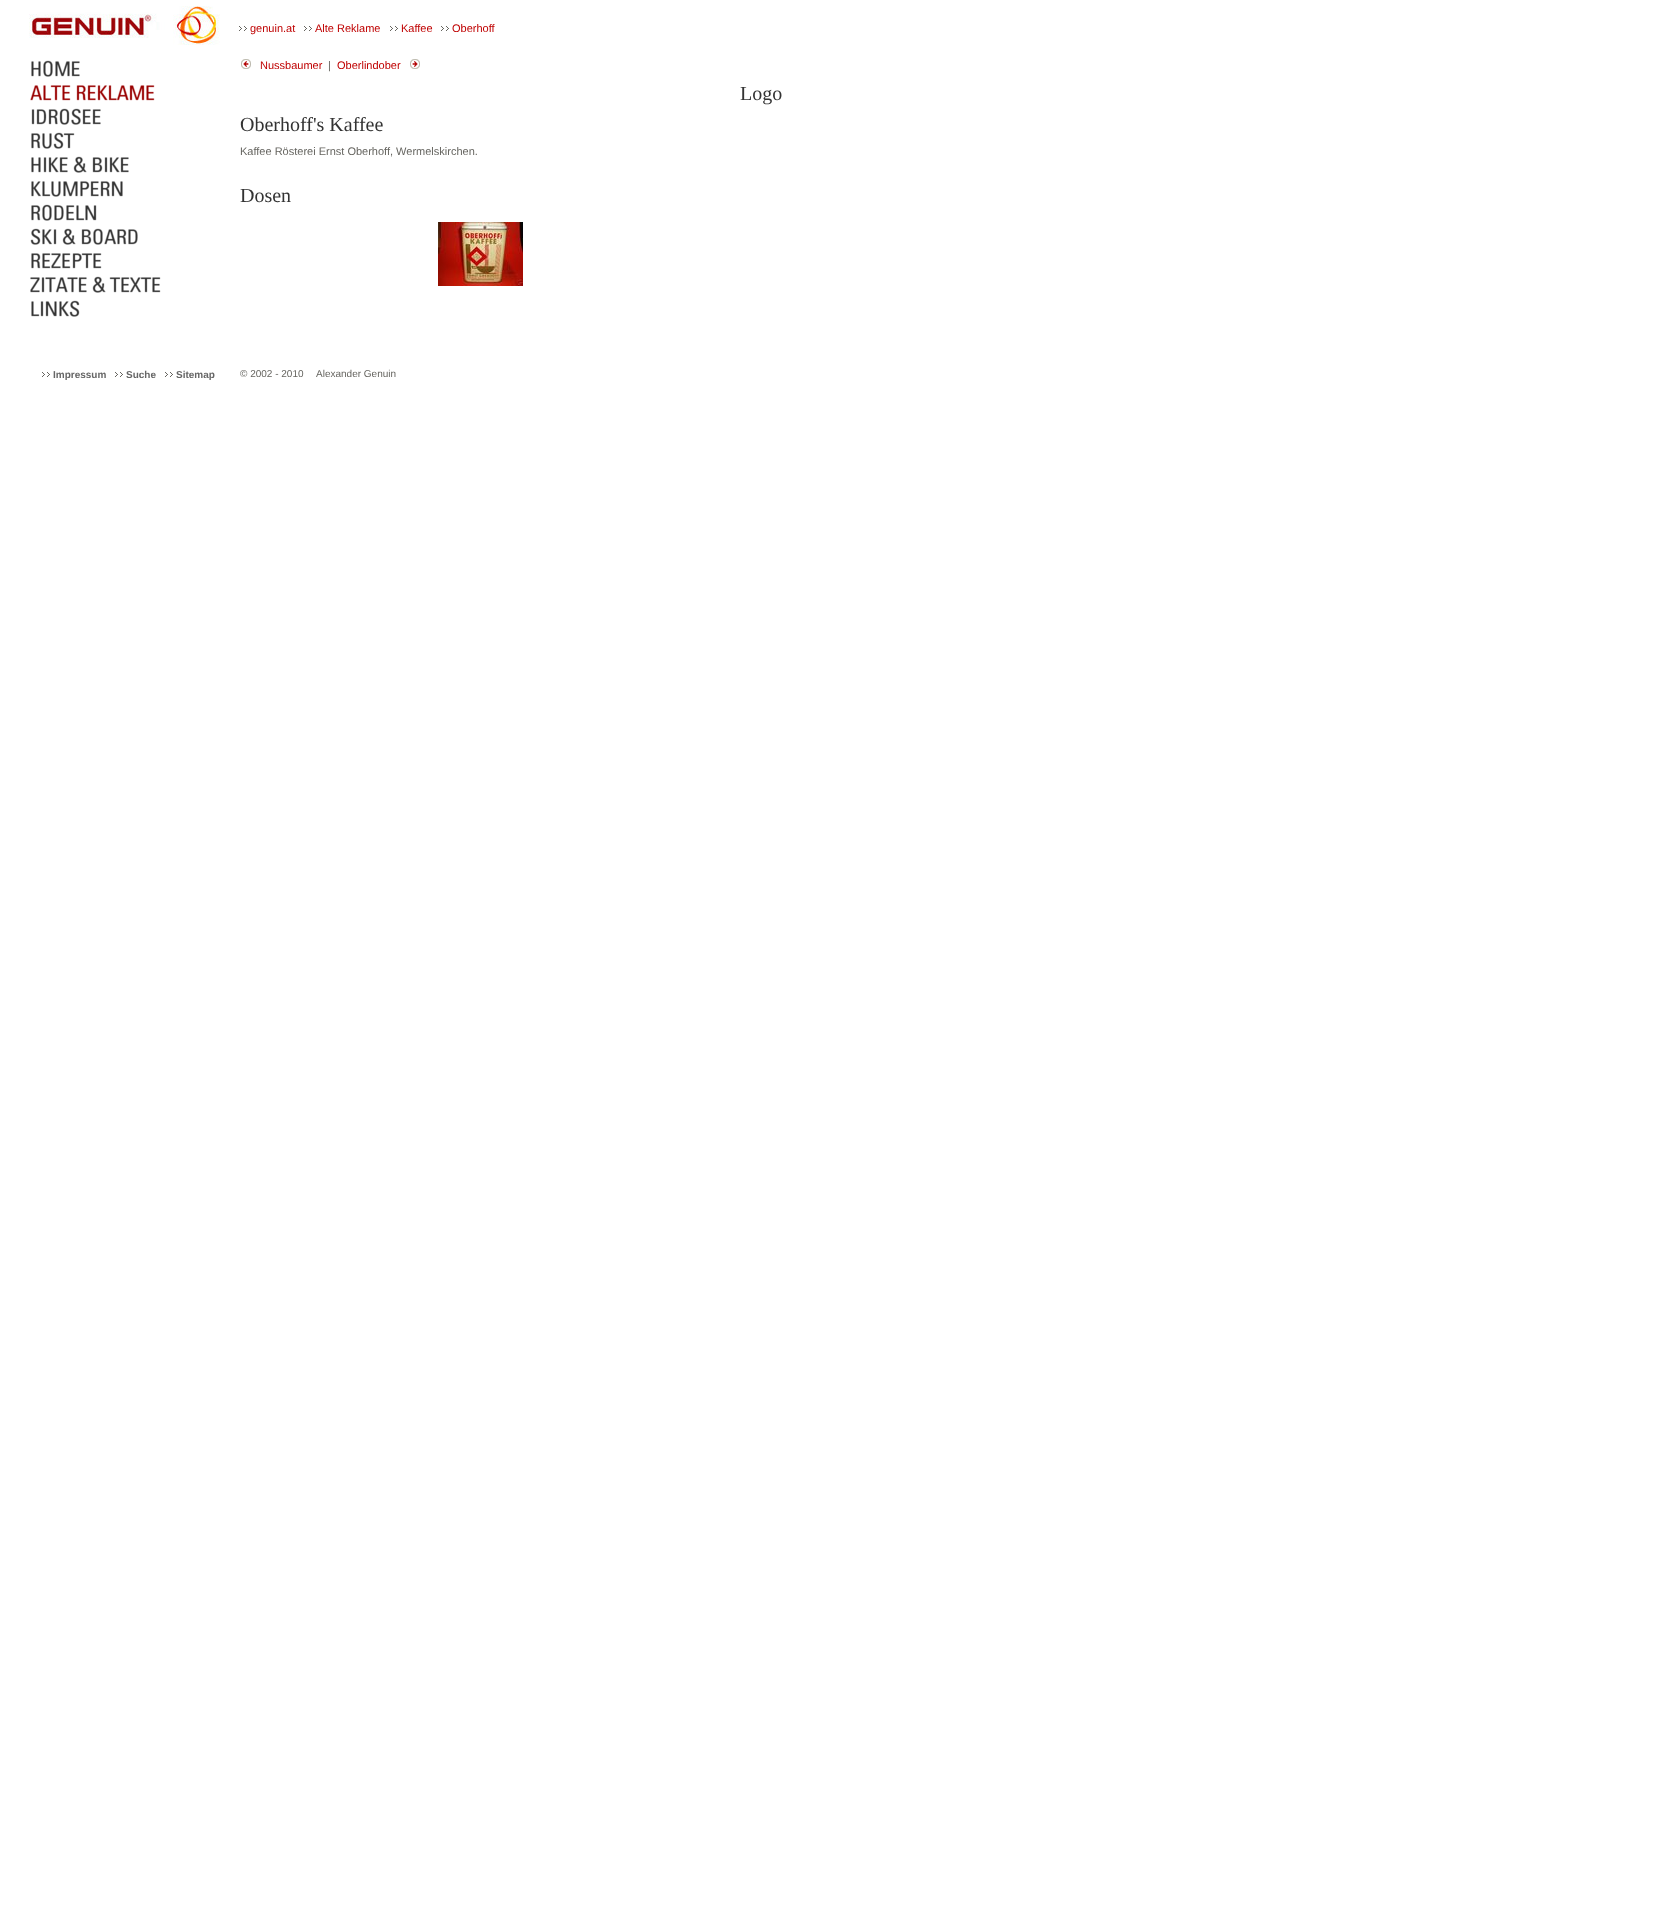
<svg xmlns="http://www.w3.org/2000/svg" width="1667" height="1928">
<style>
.a{font:11px Liberation Sans;fill:#bf0000}
.b{font:11px Liberation Sans;fill:#666560}
.c{font:20px Liberation Serif;fill:#333}
.d{font:bold 10px Liberation Sans;fill:#666}
.e{font:10px Liberation Sans;fill:#666560}
</style>
<rect width="100%" height="100%" fill="#fff"/>
<image href="1.png" x="29" y="6" width="191" height="39"/>
<image href="2.png" x="239" y="26" width="8" height="5"/>
<image href="2.png" x="304" y="26" width="8" height="5"/>
<image href="2.png" x="390" y="26" width="8" height="5"/>
<image href="2.png" x="441" y="26" width="8" height="5"/>
<image href="3.png" x="31" y="60" width="49" height="17"/>
<image href="4.png" x="30" y="85" width="125" height="16"/>
<image href="5.png" x="31" y="108" width="70" height="17"/>
<image href="6.png" x="31" y="132" width="44" height="17"/>
<image href="7.png" x="31" y="156" width="98" height="17"/>
<image href="8.png" x="31" y="181" width="92" height="16"/>
<image href="9.png" x="31" y="204" width="66" height="17"/>
<image href="10.png" x="30" y="228" width="108" height="17"/>
<image href="11.png" x="31" y="253" width="71" height="16"/>
<image href="12.png" x="30" y="276" width="131" height="17"/>
<image href="13.png" x="31" y="300" width="49" height="17"/>
<image href="14.png" x="241" y="59" width="10" height="10"/>
<image href="15.png" x="410" y="59" width="10" height="10"/>
<image href="16.png" x="438" y="222" width="85" height="64"/>
<image href="2.png" x="42" y="372" width="8" height="5"/>
<image href="2.png" x="115" y="372" width="8" height="5"/>
<image href="2.png" x="165" y="372" width="8" height="5"/>
<text class="a" x="250" y="32">genuin.at</text>
<text class="a" x="315" y="32">Alte Reklame</text>
<text class="a" x="401" y="32">Kaffee</text>
<text class="a" x="452" y="32">Oberhoff</text>
<text class="a" x="260" y="69">Nussbaumer</text>
<text class="b" x="328" y="69">|</text>
<text class="a" x="337" y="69">Oberlindober</text>
<text class="c" x="240" y="131">Oberhoff's Kaffee</text>
<text class="b" x="240" y="155">Kaffee Rösterei Ernst Oberhoff, Wermelskirchen.</text>
<text class="c" x="240" y="202">Dosen</text>
<text class="c" x="740" y="100">Logo</text>
<text class="d" x="53" y="378">Impressum</text>
<text class="d" x="126" y="378">Suche</text>
<text class="d" x="176" y="378">Sitemap</text>
<text class="e" x="240" y="377">© 2002 - 2010</text>
<text class="e" x="316" y="377">Alexander Genuin</text>
</svg>
